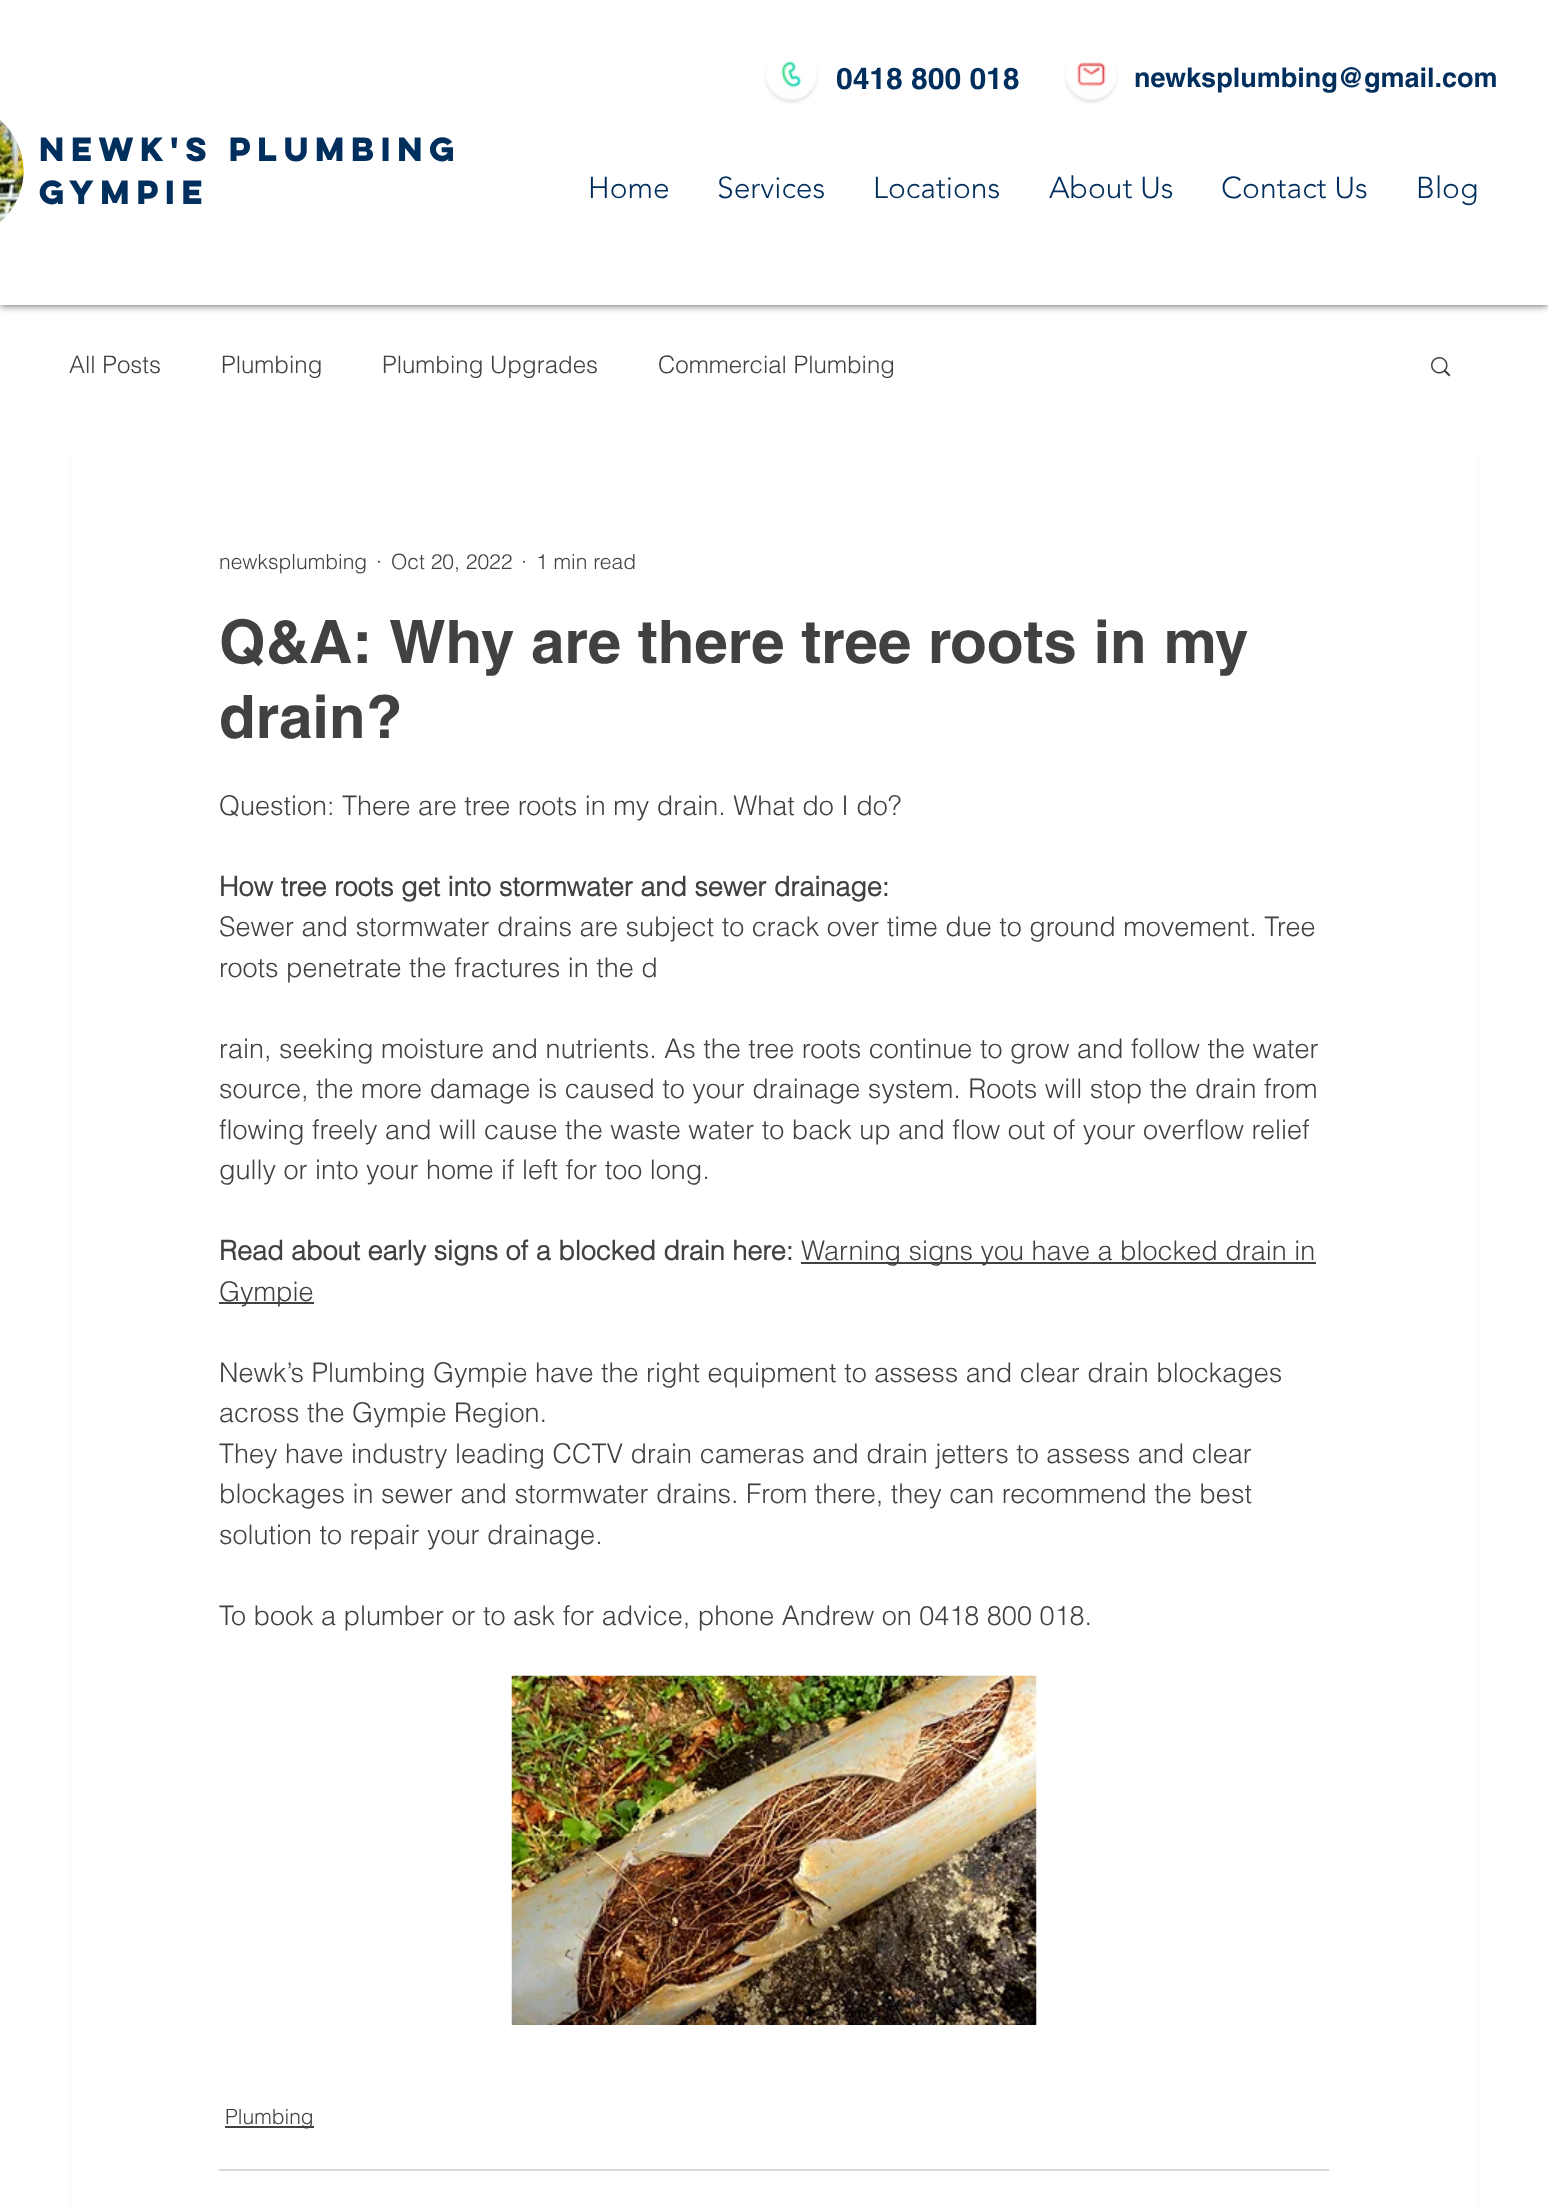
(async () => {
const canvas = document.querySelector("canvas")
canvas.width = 1548
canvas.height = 2206
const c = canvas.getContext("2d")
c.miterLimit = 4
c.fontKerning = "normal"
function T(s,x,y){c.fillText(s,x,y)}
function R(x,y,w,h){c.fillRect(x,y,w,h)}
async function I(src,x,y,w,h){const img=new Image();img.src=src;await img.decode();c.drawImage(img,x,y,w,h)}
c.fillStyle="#fff"
R(0,0,1548,2206)
c.fillStyle="#000000b3"
c.filter="blur(4px)"
c.beginPath()
c.rect(0,0,1548,305)
c.fill()
c.filter="none"
c.fillStyle="#fff"
R(0,0,1548,305)
await I("1.png",763,61,56,43)
c.font="bold 30px helvetica"
c.fillStyle="#002e5d"
T("0418 800 018",836,89)
await I("2.png",1063,62,56,42)
c.font="bold 27px helvetica"
T("newksplumbing@gmail.com",1134,87)
await I("3.png",0,119,24,104)
c.font="bold 30px 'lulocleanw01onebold'"
T("NEWK'S PLUMBING",39,161)
T("GYMPIE",39,204)
c.font="300 30px 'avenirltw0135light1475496'"
T("Home",588,198)
T("Services",717,198)
T("Locations",873,198)
T("About Us",1049,198)
T("Contact Us",1221,198)
T("Blog",1416,198)
c.font="300 24px helvetica"
c.fillStyle="#414141"
T("All Posts",69,373)
T("Plumbing",221,373)
T("Plumbing Upgrades",382,373)
T("Commercial Plumbing",658,373)
await I("4.png",1431,357,20,20)
c.strokeStyle="#fbfbfb"
c.lineWidth=2
c.strokeRect(70,456,1408,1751)
c.font="300 21px helvetica"
T("newksplumbing",219,569)
T("·",376,569)
T("Oct 20, 2022",391,569)
T("·",521,569)
T("1 min read",536,569)
c.font="bold 60px helvetica"
T("Q&A: Why are there tree roots in my",219,663)
T("drain?",219,738)
c.font="300 27px helvetica"
T("Question: There are tree roots in my drain. What do I do?",219,815)
c.font="bold 27px 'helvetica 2'"
T("How tree roots get into stormwater and sewer drainage:",219,896)
c.font="300 27px helvetica"
T("Sewer and stormwater drains are subject to crack over time due to ground movement. Tree",219,936)
T("roots penetrate the fractures in the d",219,977)
T("rain, seeking moisture and nutrients. As the tree roots continue to grow and follow the water",219,1058)
T("source, the more damage is caused to your drainage system. Roots will stop the drain from",219,1098)
T("flowing freely and will cause the waste water to back up and flow out of your overflow relief",219,1139)
T("gully or into your home if left for too long.",219,1179)
c.font="bold 27px 'helvetica 2'"
T("Read about early signs of a blocked drain here:",219,1260)
R(801,1262,515,2)
c.font="300 27px helvetica"
T("Warning signs you have a blocked drain in",801,1260)
R(219,1302,95,2)
T("Gympie",219,1301)
T("Newk’s Plumbing Gympie have the right equipment to assess and clear drain blockages",219,1382)
T("across the Gympie Region.",219,1422)
T("They have industry leading CCTV drain cameras and drain jetters to assess and clear",219,1463)
T("blockages in sewer and stormwater drains. From there, they can recommend the best",219,1503)
T("solution to repair your drainage.",219,1544)
T("To book a plumber or to ask for advice, phone Andrew on 0418 800 018.",219,1625)
await I("5.png",511,1675,526,350)
R(225,2126,89,2)
c.font="300 21px helvetica"
T("Plumbing",225,2124)
c.fillStyle="#d9d9d9"
R(219,2169,1110,2)
})()
